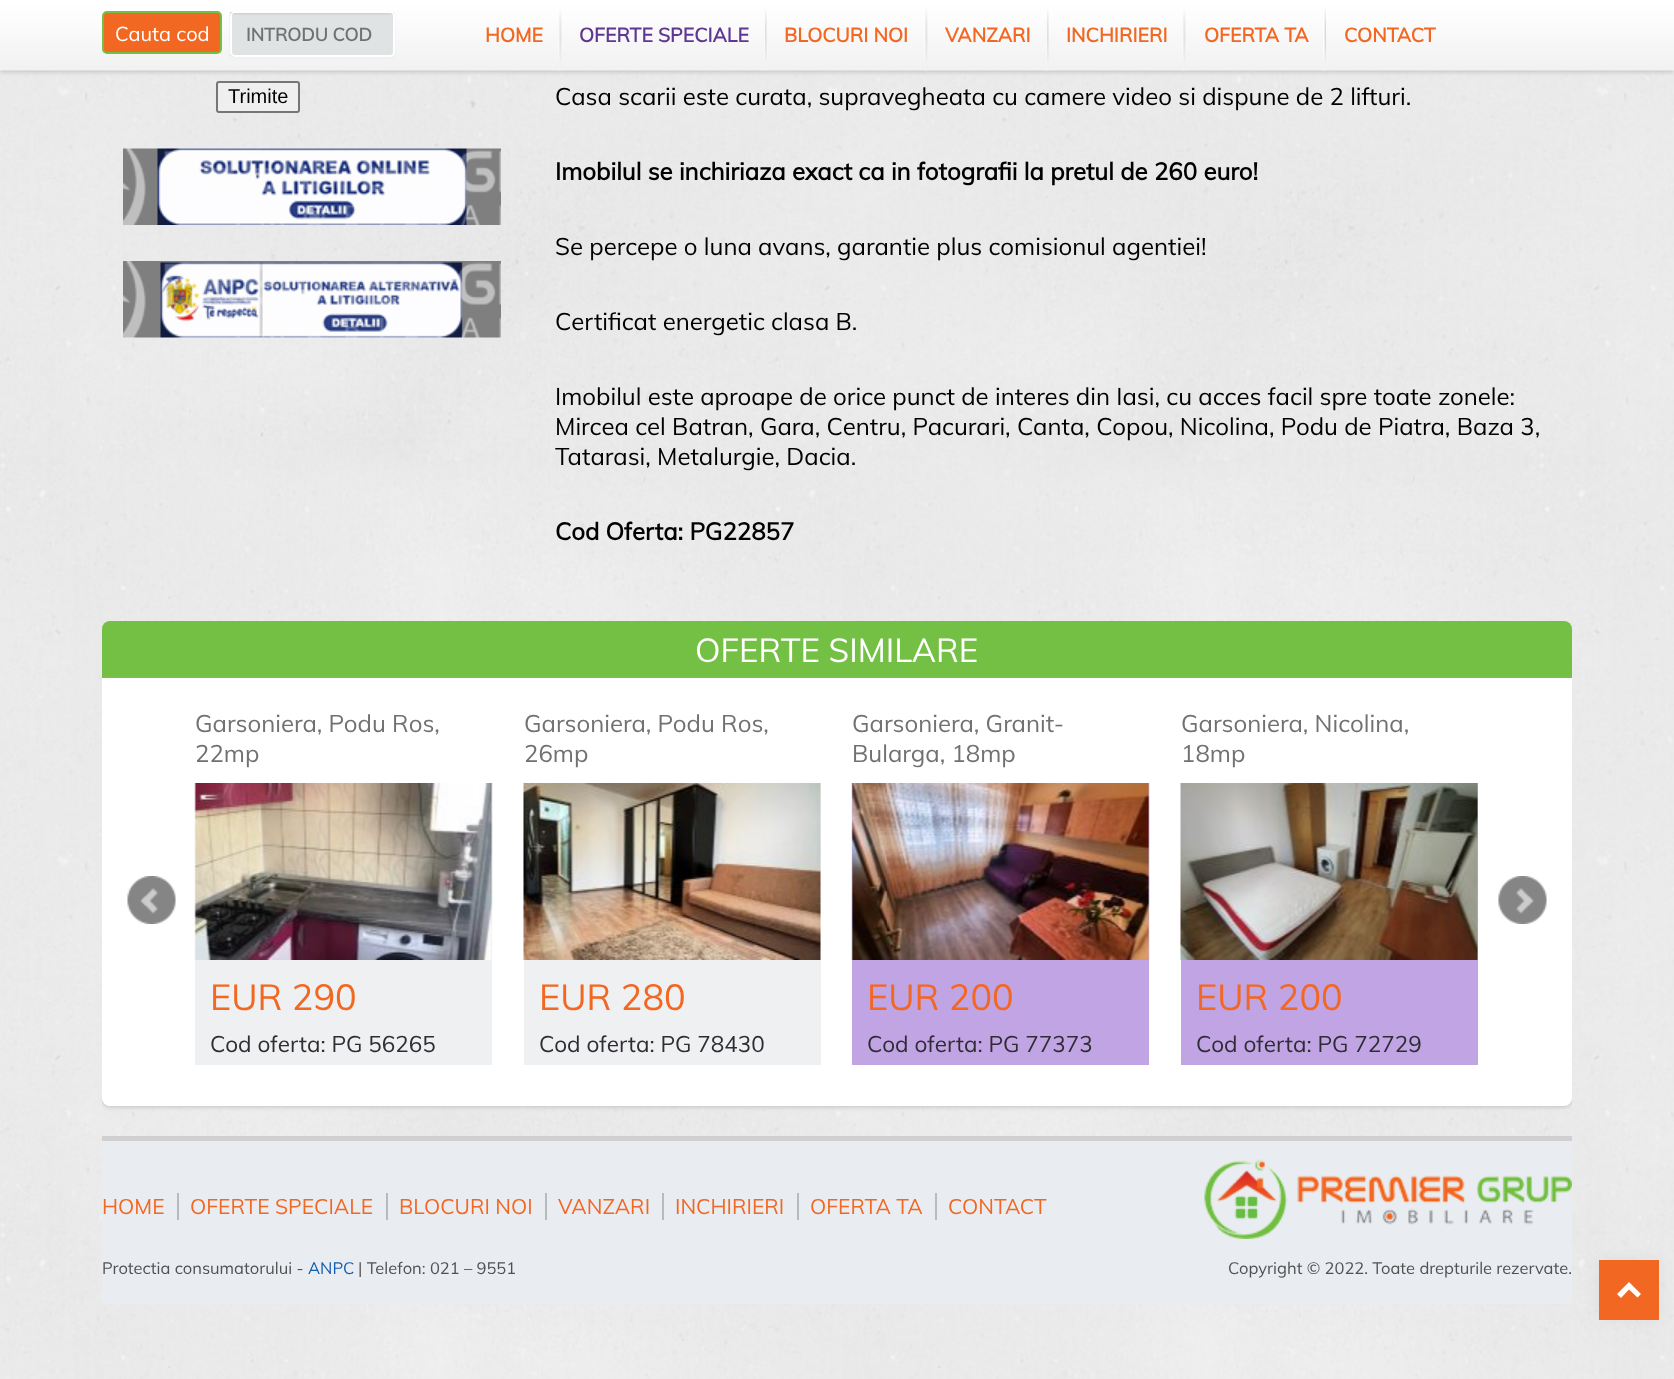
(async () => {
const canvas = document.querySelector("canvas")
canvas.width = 1674
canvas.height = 1379
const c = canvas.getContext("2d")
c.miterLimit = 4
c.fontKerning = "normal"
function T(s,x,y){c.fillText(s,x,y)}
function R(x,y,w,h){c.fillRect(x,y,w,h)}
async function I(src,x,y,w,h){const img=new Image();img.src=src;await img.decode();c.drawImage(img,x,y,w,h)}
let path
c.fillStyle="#fff"
R(0,0,1674,1379)
await I("1.png",0,70,1674,1309)
c.fillStyle="#c3c2c3"
c.filter="blur(2px)"
c.beginPath()
c.rect(0,2,1674,70)
c.fill()
c.filter="none"
await I("2.png",0,0,1674,71)
c.fillStyle="#f26722"
c.beginPath()
c.roundRect(103,12,118,41,4)
c.fill()
c.strokeStyle="#74c044"
c.lineWidth=2
c.stroke()
c.font="20px Muli"
c.fillStyle="#fff"
T("Cauta cod",115,41)
c.fillStyle="#f0f0f0"
c.filter="blur(1px)"
c.beginPath()
c.roundRect(230,12,165,47,5)
c.fill()
c.filter="none"
await I("3.png",229,12,166,45)
c.beginPath()
c.roundRect(231,12,163,44,4)
c.strokeStyle="#fff"
c.stroke()
c.font="bold 18px Muli"
c.fillStyle="#717171"
T("INTRODU COD",246,41)
await I("4.png",558,9,4,62)
c.font="bold 19.5px Muli"
c.fillStyle="#f26722"
T("HOME",485,42)
await I("5.png",764,9,3,62)
c.fillStyle="#5f3691"
T("OFERTE SPECIALE",579,42)
await I("6.png",924,9,4,62)
c.fillStyle="#f26722"
T("BLOCURI NOI",784,42)
await I("7.png",1046,9,3,62)
T("VANZARI",945,42)
await I("6.png",1182,9,4,62)
T("INCHIRIERI",1066,42)
await I("8.png",1323,8,3,63)
T("OFERTA TA",1204,42)
T("CONTACT",1344,42)
c.fillStyle="#efefef"
c.beginPath()
c.roundRect(217,82,82,30,2)
c.fill()
c.strokeStyle="#767676"
c.stroke()
c.font="20px Liberation Sans"
c.fillStyle="#000"
T("Trimite",228,103)
await I("9.png",123,148,378,77)
await I("10.png",123,261,378,77)
c.font="24px Muli"
T("Casa scarii este curata, supravegheata cu camere video si dispune de 2 lifturi.",555,105)
c.font="bold 24px Muli"
T("Imobilul se inchiriaza exact ca in fotografii la pretul de 260 euro!",555,180)
c.font="24px Muli"
T("Se percepe o luna avans, garantie plus comisionul agentiei!",555,255)
T("Certificat energetic clasa B.",555,330)
T("Imobilul este aproape de orice punct de interes din Iasi, cu acces facil spre toate zonele:",555,405)
T("Mircea cel Batran, Gara, Centru, Pacurari, Canta, Copou, Nicolina, Podu de Piatra, Baza 3,",555,435)
T("Tatarasi, Metalurgie, Dacia.",555,465)
c.font="bold 24px Muli"
T("Cod Oferta: PG22857",555,540)
c.fillStyle="#74c044"
c.beginPath()
c.roundRect(102,621,1470,57,[8,8,0,0])
c.fill()
c.font="33px Muli"
c.fillStyle="#fff"
T("OFERTE SIMILARE",695,662)
c.save()
c.beginPath()
c.rect(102,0,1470,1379)
c.clip()
c.fillStyle="#c3c2c3"
c.filter="blur(2px)"
c.beginPath()
c.roundRect(102,680,1470,427,8)
c.fill()
c.filter="none"
c.restore()
c.beginPath()
c.roundRect(102,678,1470,428,[0,0,8,8])
c.fill()
c.font="24px Muli"
c.fillStyle="#717171"
T("Garsoniera, Podu Ros,",195,732)
T("22mp",195,762)
c.fillStyle="#eff0f1"
R(195,783,297,282)
await I("11.png",194,783,299,177)
c.font="36px Muli"
c.fillStyle="#f26722"
T("EUR 290",210,1010)
c.font="22.5px Muli"
c.fillStyle="#2f2c33"
T("Cod oferta: PG 56265",210,1052)
c.font="24px Muli"
c.fillStyle="#717171"
T("Garsoniera, Podu Ros,",524,732)
T("26mp",524,762)
c.fillStyle="#eff0f1"
R(524,783,297,282)
await I("12.png",523,783,298,177)
c.font="36px Muli"
c.fillStyle="#f26722"
T("EUR 280",539,1010)
c.font="22.5px Muli"
c.fillStyle="#2f2c33"
T("Cod oferta: PG 78430",539,1052)
c.font="24px Muli"
c.fillStyle="#717171"
T("Garsoniera, Granit-",852,732)
T("Bularga, 18mp",852,762)
c.fillStyle="#c1a4e4"
R(852,783,297,282)
await I("13.png",851,783,299,177)
c.font="36px Muli"
c.fillStyle="#f26722"
T("EUR 200",867,1010)
c.font="22.5px Muli"
c.fillStyle="#2f2c33"
T("Cod oferta: PG 77373",867,1052)
c.font="24px Muli"
c.fillStyle="#717171"
T("Garsoniera, Nicolina,",1181,732)
T("18mp",1181,762)
c.fillStyle="#c1a4e4"
R(1181,783,297,282)
await I("14.png",1180,783,298,177)
c.font="36px Muli"
c.fillStyle="#f26722"
T("EUR 200",1196,1010)
c.font="22.5px Muli"
c.fillStyle="#2f2c33"
T("Cod oferta: PG 72729",1196,1052)
await I("15.png",127,876,49,48)
await I("16.png",1498,876,49,48)
c.fillStyle="#e9edf1"
R(102,1141,1470,163)
c.fillStyle="#d0d0d0"
R(102,1136,1470,5)
c.fillStyle="#b8bbbd"
R(177,1193,2,27)
c.font="21px Muli"
c.fillStyle="#f26722"
T("HOME",102,1214)
c.fillStyle="#b8bbbd"
R(386,1193,2,27)
c.fillStyle="#f26722"
T("OFERTE SPECIALE",190,1214)
c.fillStyle="#b8bbbd"
R(545,1193,2,27)
c.fillStyle="#f26722"
T("BLOCURI NOI",399,1214)
c.fillStyle="#b8bbbd"
R(662,1193,2,27)
c.fillStyle="#f26722"
T("VANZARI",558,1214)
c.fillStyle="#b8bbbd"
R(797,1193,2,27)
c.fillStyle="#f26722"
T("INCHIRIERI",675,1214)
c.fillStyle="#b8bbbd"
R(935,1193,2,27)
c.fillStyle="#f26722"
T("OFERTA TA",810,1214)
T("CONTACT",948,1214)
await I("17.png",1204,1159,368,80)
c.font="16.5px Muli"
c.fillStyle="#515151"
T("Protectia consumatorului -",102,1274)
c.fillStyle="#125dae"
T("ANPC",308,1274)
c.fillStyle="#515151"
T("| Telefon: 021 – 9551",358,1274)
T("Copyright © 2022. Toate drepturile rezervate.",1228,1274)
c.fillStyle="#0000000d"
c.filter="blur(7.5px)"
c.beginPath()
c.rect(1599,1260,60,60)
c.fill()
c.filter="none"
c.fillStyle="#f26722"
R(1599,1260,60,60)
c.fillStyle="#fff"
path = new Path2D("M1629 1282l12 12l-3.5 3.5l-8.5-8l-8 8.5l-4-4z")
c.fill(path)
})()
